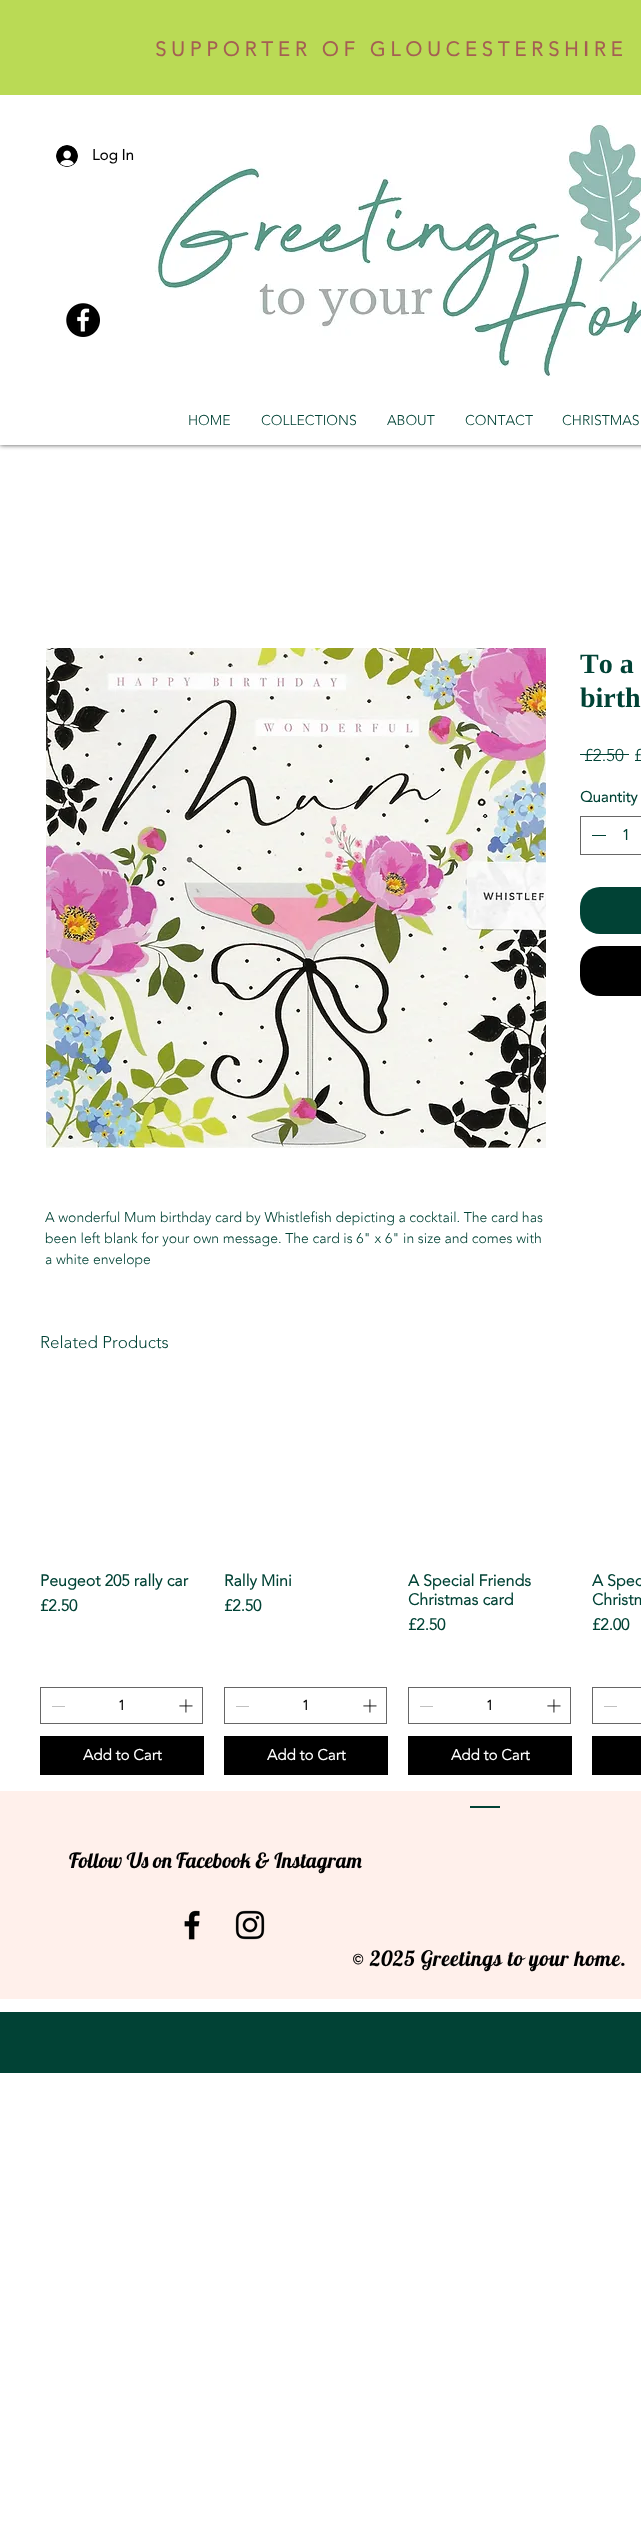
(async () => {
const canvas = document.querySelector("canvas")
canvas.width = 641
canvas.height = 2544
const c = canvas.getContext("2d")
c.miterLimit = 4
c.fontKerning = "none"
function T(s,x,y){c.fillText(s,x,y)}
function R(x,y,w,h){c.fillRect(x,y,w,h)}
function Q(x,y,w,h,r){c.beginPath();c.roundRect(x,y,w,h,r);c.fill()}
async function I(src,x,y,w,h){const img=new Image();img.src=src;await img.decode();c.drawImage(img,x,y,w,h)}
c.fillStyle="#fff"
R(0,0,641,2544)
c.fillStyle="#000000b3"
c.filter="blur(2.5px)"
c.beginPath()
c.rect(0,0,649,445)
c.fill()
c.filter="none"
c.fillStyle="#fff"
R(0,95,641,350)
c.fillStyle="#bada55"
R(0,0,641,95)
c.letterSpacing="5px"
c.font="bold 20px 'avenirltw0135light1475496'"
c.fillStyle="#a45f53"
T("SUPPORTER OF GLOUCESTERSHIRE",155,56)
T("I",583,56)
await I("1.png",56,145,22,22)
c.letterSpacing="0px"
c.font="bold 15px 'avenirltw0135light1475496'"
c.fillStyle="#000"
T("Log In",92,160)
await I("2.png",155,120,486,257)
await I("3.png",66,303,34,34)
c.font="300 14px 'avenirltw0135light1475496'"
c.fillStyle="#014235"
T("HOME",188,425)
T("COLLECTIONS",261,425)
T("ABOUT",387,425)
T("CONTACT",465,425)
T("CHRISTMAS",562,425)
c.font="bold 28px Liberation Serif"
T("To a",580,673)
T("birth",580,707)
c.font="300 17px 'avenirltw0135light1475496'"
T("£2.50",584,761)
R(580,754,49,1)
T("£",634,761)
c.font="bold 15px 'avenirltw0135light1475496'"
T("Quantity",580,802)
c.strokeStyle="#666"
c.strokeRect(580.5,816.5,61,38)
R(592,835,14,1)
T("1",622,840)
Q(580,887,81,47,20)
c.fillStyle="#000"
Q(580,946,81,50,20)
await I("4.png",46,648,500,500)
c.font="300 14px 'avenirltw0135light1475496'"
c.fillStyle="#014235"
T("A wonderful Mum birthday card by Whistlefish depicting a cocktail. The card has",45,1222)
T("been left blank for your own message. The card is 6\" x 6\" in size and comes with",45,1243)
T("a white envelope",45,1264)
c.font="300 17px 'avenirltw0135light1475496'"
T("Related Products",40,1348)
c.font="bold 16px 'avenirltw0135light1475496'"
T("Peugeot 205 rally car",40,1586)
T("£2.50",40,1611)
c.strokeRect(40.5,1687.5,162,36)
c.fillStyle="#c0c0c0"
R(52,1706,13,1)
c.font="bold 14px 'avenirltw0135light1475496'"
c.fillStyle="#000"
T("1",118,1710)
await I("5.png",179,1699,14,14)
R(40,1736,164,39)
c.font="bold 15px 'avenirltw0135light1475496'"
c.fillStyle="#fff"
T("Add to Cart",83,1760)
c.font="bold 16px 'avenirltw0135light1475496'"
c.fillStyle="#014235"
T("Rally Mini",224,1586)
T("£2.50",224,1611)
c.strokeRect(224.5,1687.5,162,36)
c.fillStyle="#c0c0c0"
R(236,1706,13,1)
c.font="bold 14px 'avenirltw0135light1475496'"
c.fillStyle="#000"
T("1",302,1710)
await I("5.png",363,1699,14,14)
R(224,1736,164,39)
c.font="bold 15px 'avenirltw0135light1475496'"
c.fillStyle="#fff"
T("Add to Cart",267,1760)
c.font="bold 16px 'avenirltw0135light1475496'"
c.fillStyle="#014235"
T("A Special Friends",408,1586)
T("Christmas card",408,1605)
T("£2.50",408,1630)
c.strokeRect(408.5,1687.5,162,36)
c.fillStyle="#c0c0c0"
R(420,1706,13,1)
c.font="bold 14px 'avenirltw0135light1475496'"
c.fillStyle="#000"
T("1",486,1710)
await I("5.png",547,1699,14,14)
R(408,1736,164,39)
c.font="bold 15px 'avenirltw0135light1475496'"
c.fillStyle="#fff"
T("Add to Cart",451,1760)
c.font="bold 16px 'avenirltw0135light1475496'"
c.fillStyle="#014235"
T("A Spec",592,1586)
T("Christm",592,1605)
T("£2.00",592,1630)
c.strokeRect(592.5,1687.5,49,36)
c.fillStyle="#c0c0c0"
R(604,1706,13,1)
c.fillStyle="#000"
R(592,1736,49,39)
c.fillStyle="#fff0eb"
R(0,1791,641,208)
c.fillStyle="#014235"
R(470,1806,30,2)
c.font="21px Lobster"
c.fillStyle="#000"
T("Follow Us on Facebook & Instagram",69,1868)
await I("6.png",184,1910,16,30)
await I("7.png",235,1910,30,30)
c.letterSpacing="0.6px"
T("© 2025 Greetings to your home.",352,1966)
c.fillStyle="#014235"
R(0,2012,641,61)
})()
